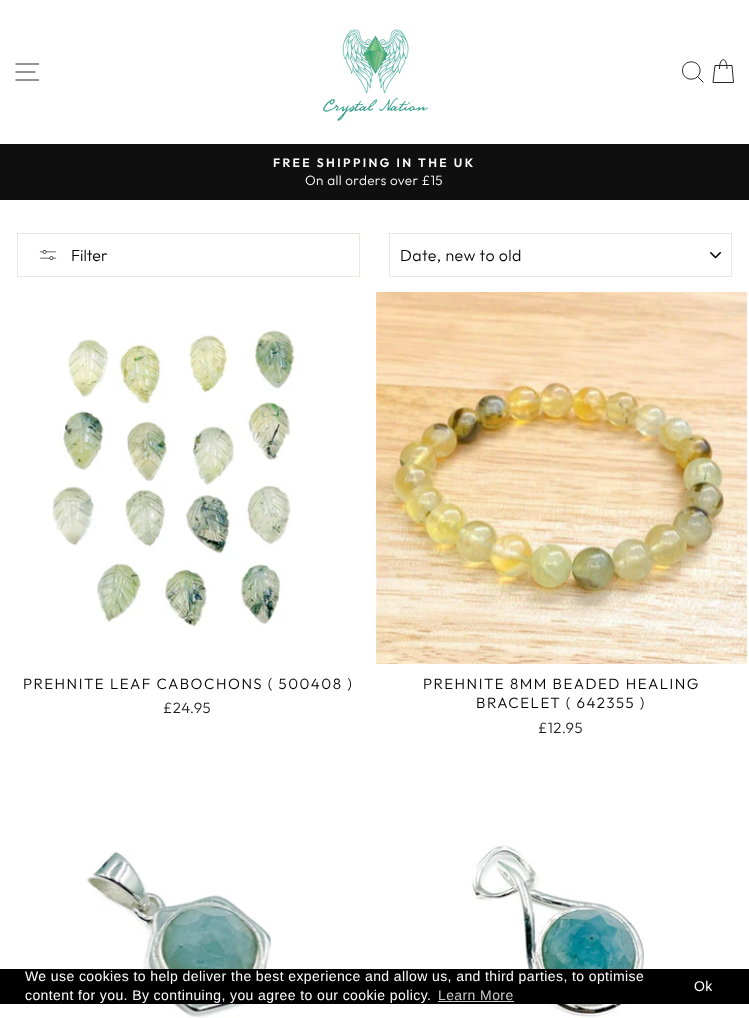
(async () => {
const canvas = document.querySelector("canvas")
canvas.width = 749
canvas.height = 1018
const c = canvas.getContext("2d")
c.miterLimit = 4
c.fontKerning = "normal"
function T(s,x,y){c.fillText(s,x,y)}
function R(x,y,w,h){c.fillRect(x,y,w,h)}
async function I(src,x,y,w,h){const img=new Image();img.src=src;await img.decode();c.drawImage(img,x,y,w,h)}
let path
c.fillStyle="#fff"
R(0,0,749,1018)
path = new Path2D("M15.5 64h23.5m-23.5 8h20m-20 8h23.5")
c.strokeStyle="#0f0f0f"
c.lineWidth=0.9
c.stroke(path)
await I("1.png",323,29,105,92)
path = new Path2D("M700 70.5c0 11.5-17.5 11.5-17.5 0c0-11.5 17.5-11.5 17.5 0zm3.5 12l-6-6m22-7.5c0-12.5 7.5-12.5 7.5 0m-12-3.5h17l1.5 17h-20.5z")
c.stroke(path)
c.fillStyle="#0f0f0f"
R(0,144,749,56)
c.letterSpacing="2.4px"
c.font="600 12.2px Outfit"
c.fillStyle="#fff"
T("FREE SHIPPING IN THE UK",273,167)
c.letterSpacing="0.4px"
c.font="300 13.5px Outfit"
T("On all orders over £15",305,185)
c.strokeStyle="#e8e8e1"
c.lineWidth=1
c.strokeRect(17.5,233.5,342,43)
await I("2.png",39,250,18,10)
c.letterSpacing="0px"
c.font="300 16px Outfit"
c.fillStyle="#000"
T("Filter",71,261)
await I("3.png",710,252,11,7)
c.strokeRect(389.5,233.5,342,43)
c.letterSpacing="0.4px"
T("Date, new to old",400,261)
await I("4.png",52,329,243,298)
c.letterSpacing="1.5px"
c.font="300 15px Outfit"
T("PREHNITE LEAF CABOCHONS ( 500408 )",23,689)
c.letterSpacing="0.4px"
c.fillStyle="#1c1d1d"
T("£24.95",163,713)
await I("5.png",376,292,371,372)
c.letterSpacing="1.5px"
c.fillStyle="#000"
T("PREHNITE 8MM BEADED HEALING",423,689)
T("BRACELET ( 642355 )",476,708)
c.letterSpacing="0.4px"
c.fillStyle="#1c1d1d"
T("£12.95",538,733)
await I("6.png",86,851,185,167)
await I("7.png",471,845,173,173)
c.fillStyle="#000"
R(0,969,749,35)
c.font="14px Liberation Sans"
c.fillStyle="#fff"
T("We use cookies to help deliver the best experience and allow us, and third parties, to optimise",25,981)
T("content for you. By continuing, you agree to our cookie policy.",25,1000)
c.fillStyle="#ccc"
T("Learn More",438,1000)
R(438,1001,76,1)
c.fillStyle="#fff"
T("Ok",694,991)
})()
